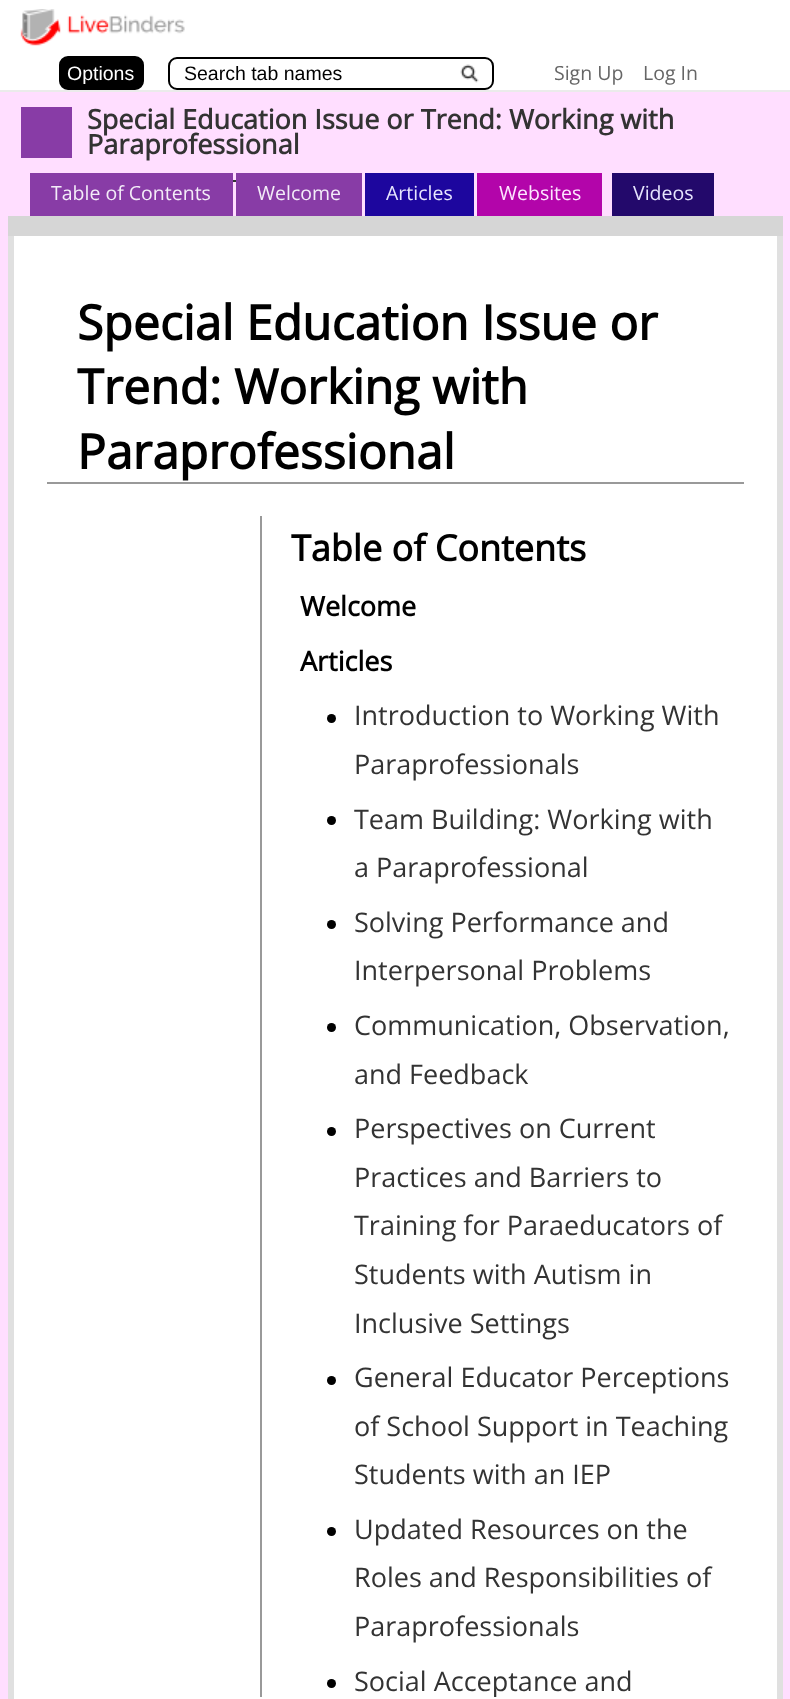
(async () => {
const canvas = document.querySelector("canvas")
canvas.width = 790
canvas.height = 1699
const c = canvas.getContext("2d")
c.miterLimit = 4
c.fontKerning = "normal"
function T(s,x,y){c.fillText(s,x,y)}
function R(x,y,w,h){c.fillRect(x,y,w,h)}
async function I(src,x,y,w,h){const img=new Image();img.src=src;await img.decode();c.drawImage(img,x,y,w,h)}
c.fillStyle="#ffdeff"
R(0,0,790,1699)
c.fillStyle="#fff"
R(0,0,790,90)
c.fillStyle="#ebebeb"
R(0,90,790,2)
await I("1.png",20,9,165,37)
c.fillStyle="#000"
c.beginPath()
c.roundRect(60,57,83,32,8)
c.fill()
c.strokeStyle="#000"
c.lineWidth=2
c.stroke()
c.font="19.5px Liberation Sans"
c.fillStyle="#fff"
T("Options",67,80)
await I("2.png",460,64,19,19)
c.beginPath()
c.roundRect(169,58,324,31,8)
c.stroke()
c.fillStyle="#000"
T("Search tab names",184,80)
c.font="19.5px Open Sans"
c.fillStyle="#666"
T("Sign Up",554,80)
T("Log In",643,80)
c.fillStyle="#883ca6"
R(21,107,51,51)
c.font="bold 27px Open Sans"
c.fillStyle="#333"
T("Special Education Issue or Trend: Working with",87,129)
T("Paraprofessional",87,154)
R(233,180,3,2)
c.fillStyle="#d6d6d6"
R(8,216,775,20)
c.fillStyle="#883ca6"
R(30,173,203,43)
c.font="19.5px Open Sans"
c.fillStyle="#f3ecf8"
T("Table of Contents",51,200)
c.fillStyle="#883ca6"
R(236,173,126,43)
c.fillStyle="#f3ecf8"
T("Welcome",257,200)
c.fillStyle="#1d069e"
R(365,173,109,43)
c.fillStyle="#e7e6fe"
T("Articles",386,200)
c.fillStyle="#b305aa"
R(477,173,125,43)
c.fillStyle="#fde6ff"
T("Websites",499,200)
c.fillStyle="#23096b"
R(612,173,102,43)
c.fillStyle="#e7e6fe"
T("Videos",633,200)
c.fillStyle="#fff"
R(14,236,763,1463)
c.fillStyle="#e0e0e0"
R(777,236,6,1463)
R(8,236,6,1463)
c.fillStyle="#999"
R(47,482,697,2)
c.font="bold 48px Open Sans"
c.fillStyle="#000"
T("Special Education Issue or",77,340)
T("Trend: Working with",77,404)
T("Paraprofessional",77,469)
c.fillStyle="#999"
R(260,516,2,1181)
c.font="bold 36px Open Sans"
c.fillStyle="#000"
T("Table of Contents",291,561)
c.font="bold 27px Open Sans"
T("Welcome",300,616)
T("Articles",300,671)
c.beginPath()
c.arc(331.5,718.5,4.5,0,7)
c.fill()
c.font="27px Open Sans"
c.fillStyle="#333"
T("Introduction to Working With",354,725)
T("Paraprofessionals",354,774)
c.fillStyle="#000"
c.beginPath()
c.arc(331.5,820.5,4.5,0,7)
c.fill()
c.fillStyle="#333"
T("Team Building: Working with",354,829)
T("a Paraprofessional",354,877)
c.fillStyle="#000"
c.beginPath()
c.arc(331.5,924.5,4.5,0,7)
c.fill()
c.fillStyle="#333"
T("Solving Performance and",354,932)
T("Interpersonal Problems",354,980)
c.fillStyle="#000"
c.beginPath()
c.arc(331.5,1027.5,4.5,0,7)
c.fill()
c.fillStyle="#333"
T("Communication, Observation,",354,1035)
T("and Feedback",354,1084)
c.fillStyle="#000"
c.beginPath()
c.arc(331.5,1131.5,4.5,0,7)
c.fill()
c.fillStyle="#333"
T("Perspectives on Current",354,1138)
T("Practices and Barriers to",354,1187)
T("Training for Paraeducators of",354,1235)
T("Students with Autism in",354,1284)
T("Inclusive Settings",354,1333)
c.fillStyle="#000"
c.beginPath()
c.arc(331.5,1380.5,4.5,0,7)
c.fill()
c.fillStyle="#333"
T("General Educator Perceptions",354,1387)
T("of School Support in Teaching",354,1436)
T("Students with an IEP",354,1484)
c.fillStyle="#000"
c.beginPath()
c.arc(331.5,1531.5,4.5,0,7)
c.fill()
c.fillStyle="#333"
T("Updated Resources on the",354,1539)
T("Roles and Responsibilities of",354,1587)
T("Paraprofessionals",354,1636)
c.fillStyle="#000"
c.beginPath()
c.arc(331.5,1683.5,4.5,0,7)
c.fill()
c.save()
c.beginPath()
c.rect(291,576,453,1121)
c.clip()
c.fillStyle="#333"
T("Social Acceptance and",354,1691)
c.restore()
})()
